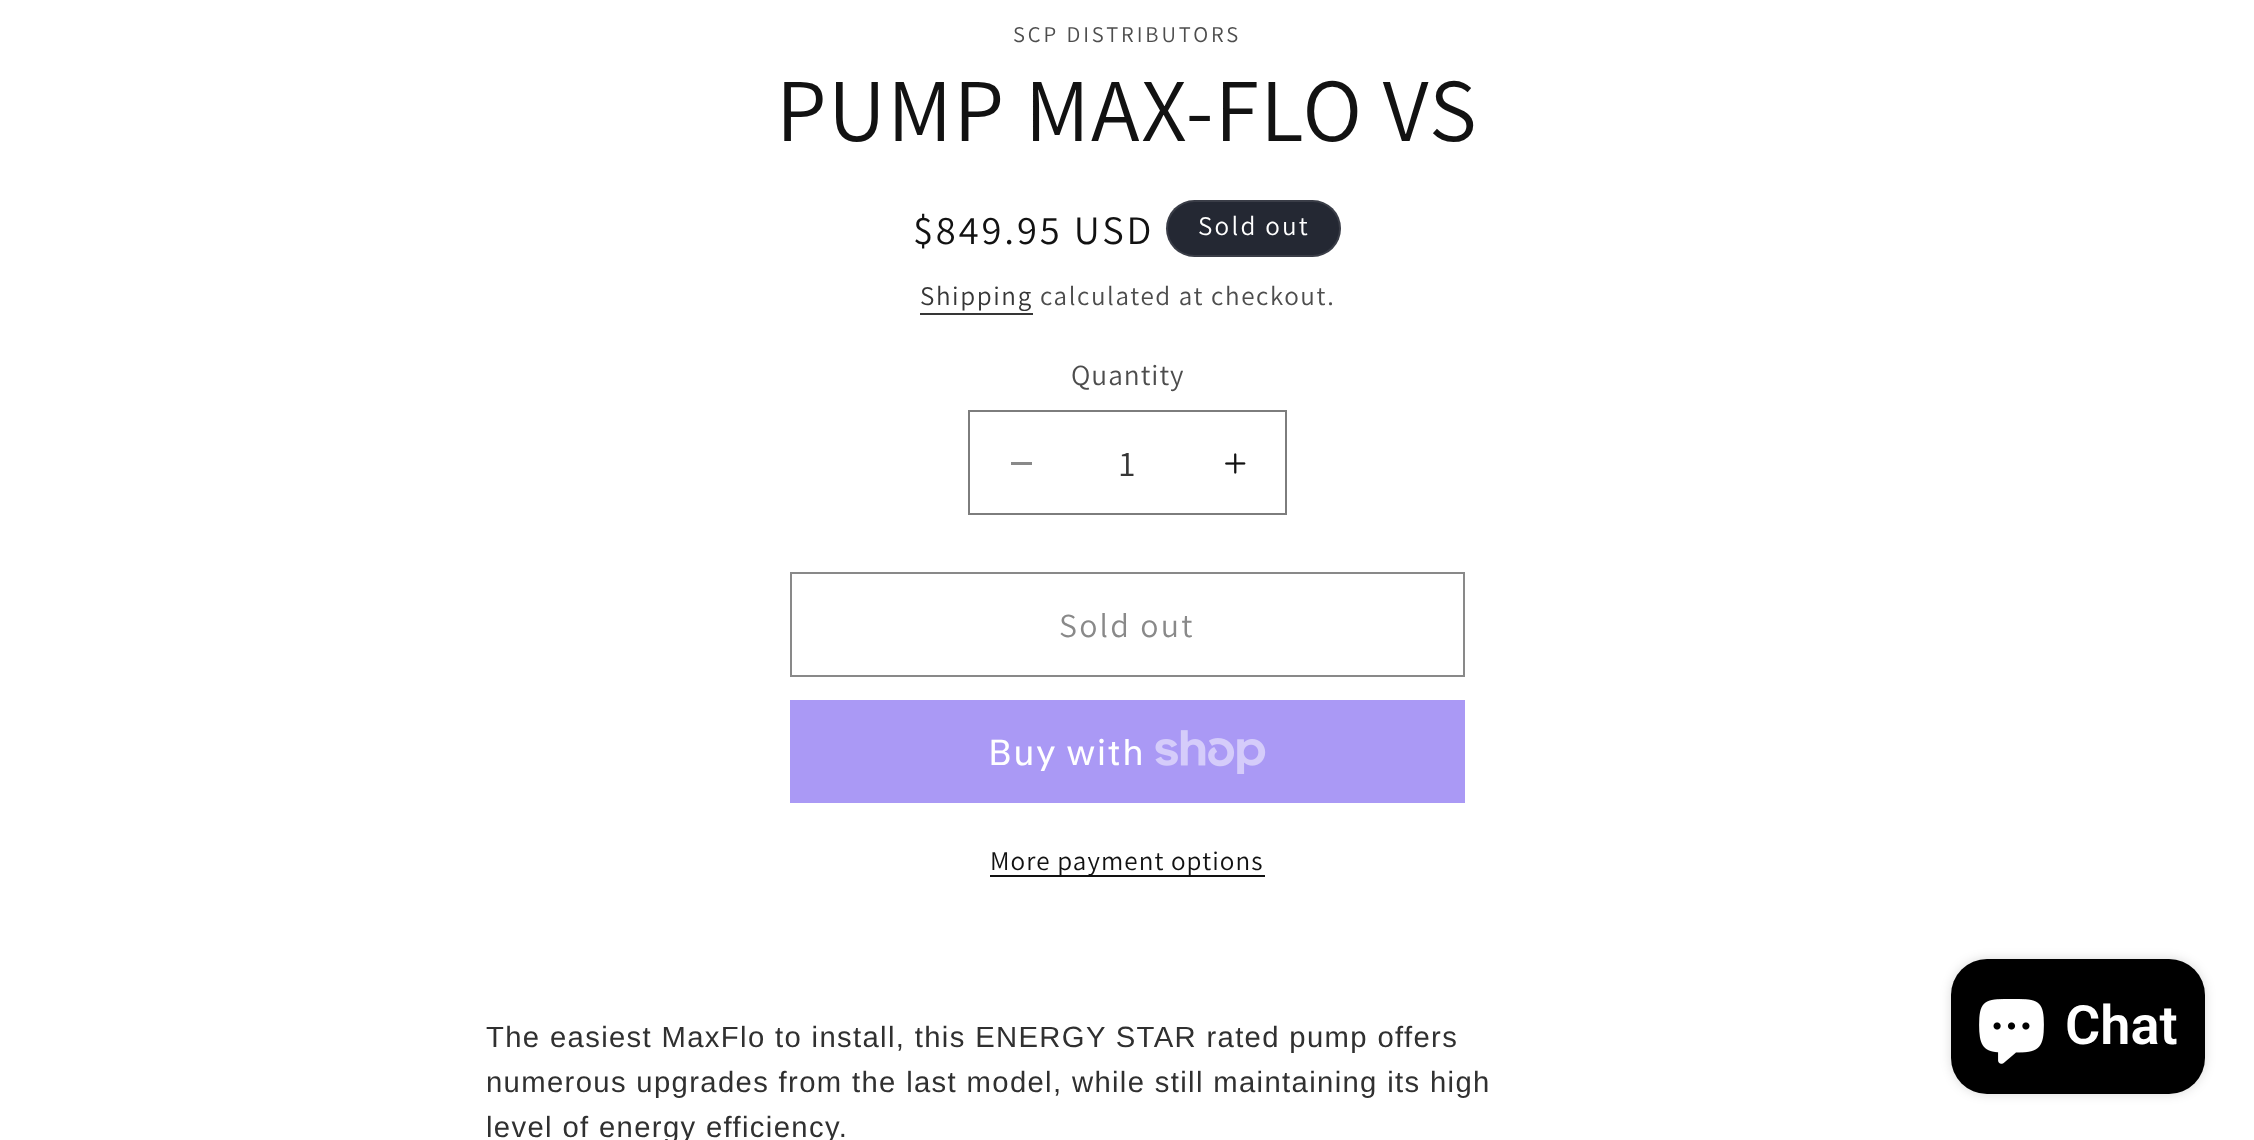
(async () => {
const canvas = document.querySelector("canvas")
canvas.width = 2254
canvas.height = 1140
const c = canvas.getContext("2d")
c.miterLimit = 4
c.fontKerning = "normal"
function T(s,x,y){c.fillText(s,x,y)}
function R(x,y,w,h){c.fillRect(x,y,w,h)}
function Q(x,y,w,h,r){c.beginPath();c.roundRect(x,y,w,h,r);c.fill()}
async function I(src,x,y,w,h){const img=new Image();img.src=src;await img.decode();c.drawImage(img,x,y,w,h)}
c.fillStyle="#fff"
R(0,0,2254,1140)
c.letterSpacing="2.9px"
c.font="22.5px Assistant"
c.fillStyle="#4d4d4d"
T("SCP DISTRIBUTORS",1013,42)
c.letterSpacing="1.35px"
c.font="90px Assistant"
c.fillStyle="#121212"
T("PUMP MAX-FLO VS",776,141)
c.letterSpacing="2.9px"
c.font="40.5px Assistant"
T("$849.95 USD",913,244)
c.fillStyle="#242833"
Q(1166,200,175,57,28.5)
c.beginPath()
c.roundRect(1167,201,173,55,27.5)
c.strokeStyle="#ffffff1a"
c.lineWidth=2
c.stroke()
c.letterSpacing="2.25px"
c.font="27px Assistant"
c.fillStyle="#fff"
T("Sold out",1198,235)
c.letterSpacing="1.6px"
c.fillStyle="#363636"
T("Shipping",920,305)
R(920,313,113,2)
c.fillStyle="#4d4d4d"
T("calculated at checkout.",1040,305)
c.letterSpacing="1px"
c.font="29.25px Assistant"
T("Quantity",1071,385)
c.fillStyle="#898989"
R(1011,462,21,3)
await I("1.png",1225,453,21,21)
c.strokeStyle="#7d7d7d"
c.strokeRect(969,411,317,103)
c.letterSpacing="0px"
c.font="36px Assistant"
c.fillStyle="#363636"
T("1",1119,476)
c.strokeStyle="#898989"
c.strokeRect(791,573,673,103)
c.letterSpacing="2.25px"
c.font="33.75px Assistant"
c.fillStyle="#898989"
T("Sold out",1059,637)
c.fillStyle="#aa99f5"
R(790,700,675,103)
c.letterSpacing="1.35px"
c.font="36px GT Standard"
c.fillStyle="#fff"
T("Buy with",988,765)
await I("2.png",1155,730,111,44)
c.fillStyle="#121212"
R(990,875,275,2)
c.letterSpacing="1.1px"
c.font="27px Assistant"
T("More payment options",990,870)
c.letterSpacing="1.35px"
c.font="29.25px Liberation Sans"
c.fillStyle="#303030"
T("The easiest MaxFlo to install, this ENERGY STAR rated pump offers",486,1047)
T("numerous upgrades from the last model, while still maintaining its high",486,1092)
T("level of energy efficiency.",486,1137)
c.fillStyle="#00000026"
c.filter="blur(5.5px)"
c.beginPath()
c.roundRect(1951,959,254,135,36)
c.fill()
c.filter="none"
c.fillStyle="#000"
Q(1951,959,254,135,36)
await I("3.png",1979,999,65,65)
c.letterSpacing="0px"
c.font="600 54px Roboto"
c.fillStyle="#fff"
T("Chat",2065,1044)
})()
